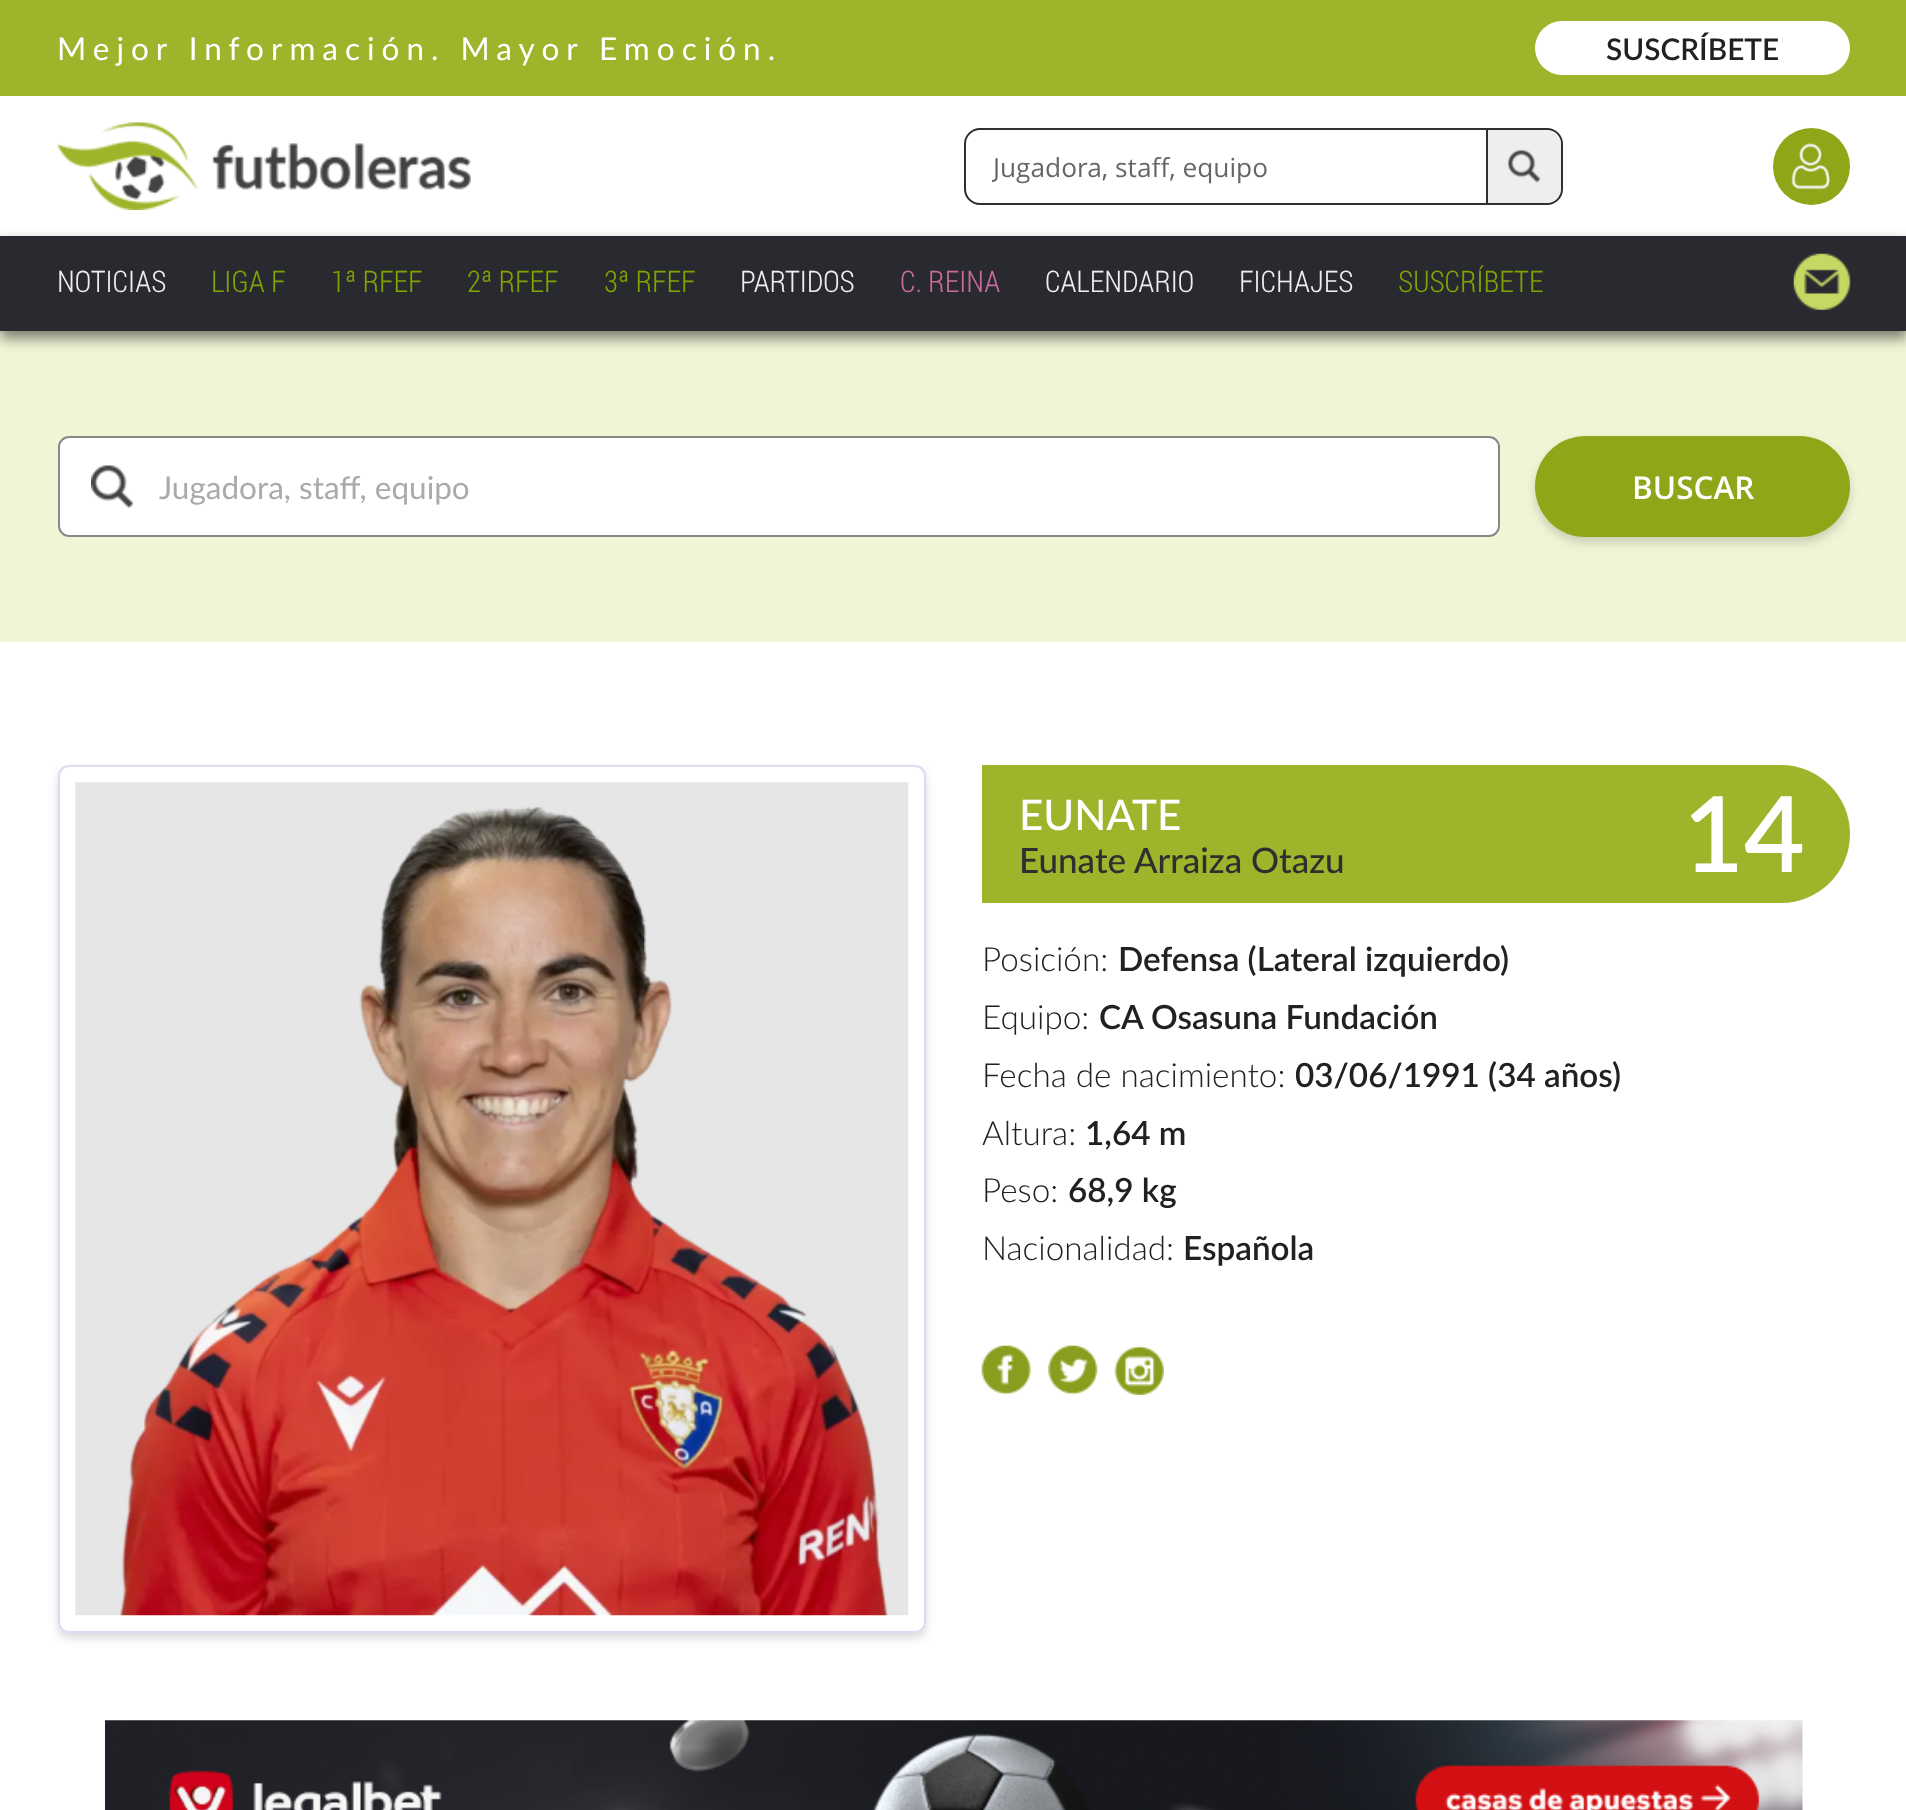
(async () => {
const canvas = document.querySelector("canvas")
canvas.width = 1906
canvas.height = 1810
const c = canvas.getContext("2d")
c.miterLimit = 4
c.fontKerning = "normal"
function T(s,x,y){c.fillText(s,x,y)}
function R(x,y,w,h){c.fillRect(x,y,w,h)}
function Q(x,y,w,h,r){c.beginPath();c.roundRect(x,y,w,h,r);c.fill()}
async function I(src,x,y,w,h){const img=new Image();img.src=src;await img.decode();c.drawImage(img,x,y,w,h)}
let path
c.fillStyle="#f0f5d6"
R(0,0,1906,1810)
c.fillStyle="#9cb52b"
R(0,0,1906,96)
c.letterSpacing="7px"
c.font="31.5px Lato"
c.fillStyle="#fff"
T("Mejor Información. Mayor Emoción.",57,60)
Q(1535,21,315,54,27)
c.letterSpacing="0px"
c.font="600 29.75px Lato"
c.fillStyle="#212121"
T("SUSCRÍBETE",1606,60)
c.fillStyle="#fff"
R(0,96,1906,140)
await I("1.png",57,122,414,88)
c.beginPath()
c.roundRect(965,129,597,75,15)
c.strokeStyle="#2f2f2f"
c.lineWidth=2
c.stroke()
c.save()
c.beginPath()
c.rect(992,149,469,35)
c.clip()
c.font="26.25px Open Sans"
c.fillStyle="#666"
T("Jugadora, staff, equipo",993,177)
c.restore()
c.fillStyle="#eee"
c.beginPath()
c.roundRect(1488,130,73,73,[0,16,16,0])
c.fill()
await I("2.png",1507,149,34,34)
c.fillStyle="#2f2f2f"
R(1486,130,2,73)
c.fillStyle="#8da718"
c.beginPath()
c.arc(1811.5,166.5,38.5,0,7)
c.fill()
await I("3.png",1791,142,39,48)
c.fillStyle="#00000080"
c.filter="blur(7px)"
c.beginPath()
c.rect(0,243,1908,95)
c.fill()
c.filter="none"
c.fillStyle="#292930"
R(0,236,1906,95)
c.font="300 29.75px Roboto Condensed"
c.fillStyle="#eee"
T("NOTICIAS",57,292)
c.fillStyle="#84a200"
T("LIGA F",211,292)
T("1ª RFEF",331,292)
T("2ª RFEF",467,292)
T("3ª RFEF",604,292)
c.fillStyle="#eee"
T("PARTIDOS",740,292)
c.fillStyle="#c86c9e"
T("C. REINA",900,292)
c.fillStyle="#eee"
T("CALENDARIO",1045,292)
T("FICHAJES",1239,292)
c.fillStyle="#84a200"
T("SUSCRÍBETE",1398,292)
await I("4.png",1793,253,58,57)
c.fillStyle="#fff"
Q(58,436,1442,101,11)
await I("5.png",91,465,42,43)
c.beginPath()
c.roundRect(59,437,1440,99,10)
c.strokeStyle="#888"
c.stroke()
c.font="31.5px Lato"
c.fillStyle="#aaa"
T("Jugadora, staff, equipo",159,499)
c.fillStyle="#00000026"
c.filter="blur(5px)"
c.beginPath()
c.roundRect(1535,441,315,102,51)
c.fill()
c.filter="none"
c.fillStyle="#8da718"
Q(1535,436,315,101,50.5)
c.font="600 31.5px Open Sans"
c.fillStyle="#fff"
T("BUSCAR",1632,499)
R(0,642,1906,1168)
c.save()
path = new Path2D("M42 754h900v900h-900zm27 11h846c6 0 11 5 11 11v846c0 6-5 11-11 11h-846c-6 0-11-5-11-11v-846c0-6 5-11 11-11z")
c.clip(path,"evenodd")
c.fillStyle="#00000026"
c.filter="blur(5px)"
c.beginPath()
c.roundRect(58,770,868,868,11)
c.fill()
c.filter="none"
c.restore()
c.beginPath()
c.roundRect(59,766,866,866,10)
c.strokeStyle="#daddf2"
c.stroke()
await I("6.png",75,782,834,834)
c.fillStyle="#9cb52b"
c.beginPath()
c.roundRect(982,765,868,138,[0,69,69,0])
c.fill()
c.font="500 42px Lato"
c.fillStyle="#fff"
T("EUNATE",1019,830)
c.font="500 35px Lato"
c.fillStyle="#2f2f2f"
T("Eunate Arraiza Otazu",1019,873)
c.font="600 105px Lato"
c.fillStyle="#fff"
T("14",1683,872)
c.font="300 33.25px Lato"
c.fillStyle="#212121"
T("Posición:",982,971)
c.font="600 33.25px Lato"
T("Defensa (Lateral izquierdo)",1118,971)
c.font="300 33.25px Lato"
T("Equipo:",982,1029)
c.font="600 33.25px Lato"
T("CA Osasuna Fundación",1099,1029)
c.font="300 33.25px Lato"
T("Fecha de nacimiento:",982,1087)
c.font="600 33.25px Lato"
T("03/06/1991 (34 años)",1295,1087)
c.font="300 33.25px Lato"
T("Altura:",982,1145)
c.font="600 33.25px Lato"
T("1,64 m",1085,1145)
c.font="300 33.25px Lato"
T("Peso:",982,1202)
c.font="600 33.25px Lato"
T("68,9 kg",1068,1202)
c.font="300 33.25px Lato"
T("Nacionalidad:",982,1260)
c.font="600 33.25px Lato"
T("Española",1183,1260)
await I("7.png",981,1345,50,50)
await I("8.png",1048,1345,50,50)
await I("9.png",1114,1345,50,50)
await I("10.png",105,1720,1698,90)
})()
